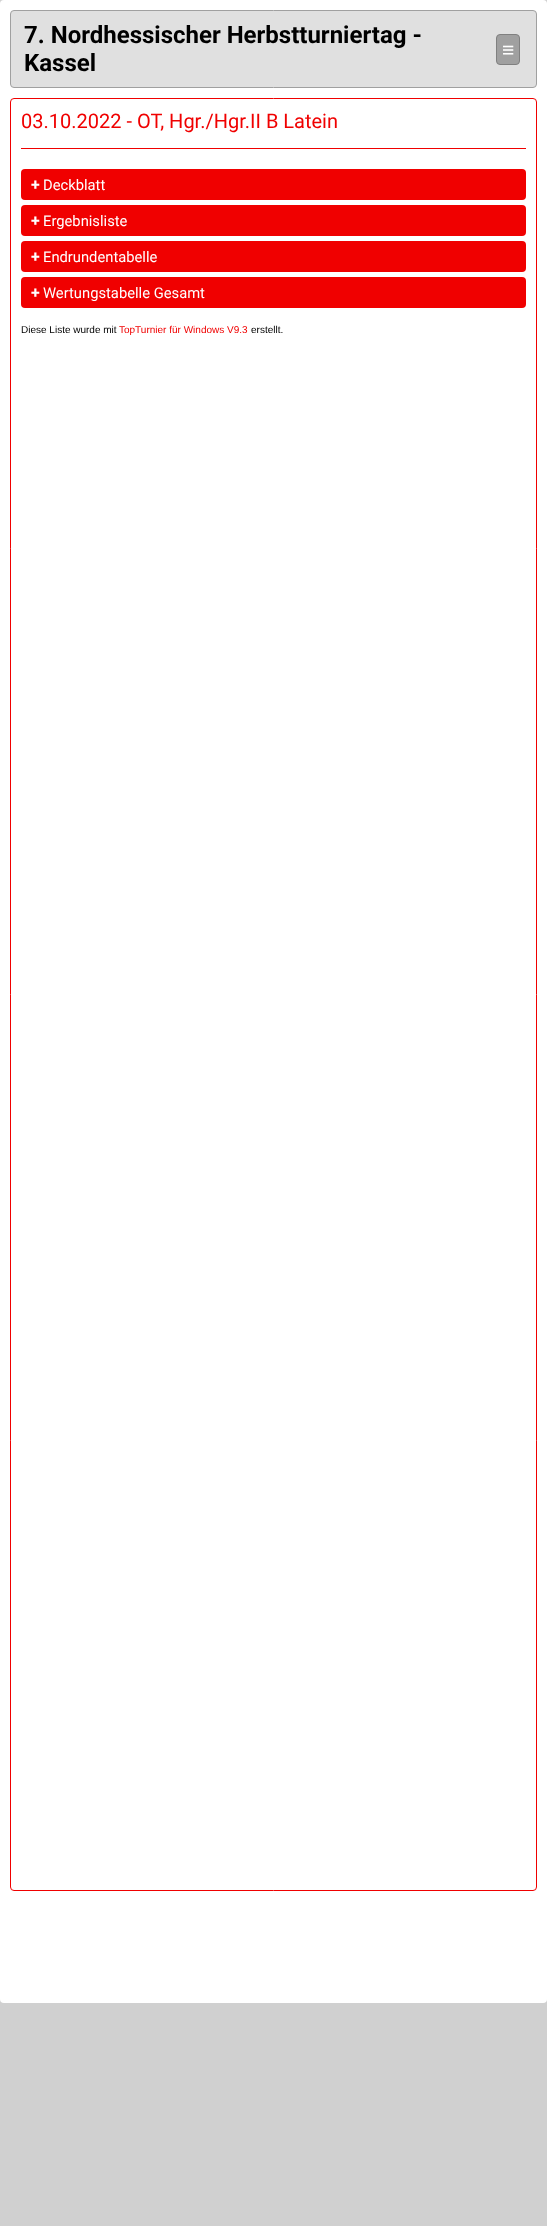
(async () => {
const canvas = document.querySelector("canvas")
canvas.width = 547
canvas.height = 2226
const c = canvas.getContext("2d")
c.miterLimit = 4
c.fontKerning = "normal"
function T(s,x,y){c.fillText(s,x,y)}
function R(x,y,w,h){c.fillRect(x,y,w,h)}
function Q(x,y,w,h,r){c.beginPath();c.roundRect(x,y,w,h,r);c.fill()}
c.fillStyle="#d0d0d0"
R(0,0,547,2226)
c.fillStyle="#fff"
Q(0,0,547,2003,4)
c.fillStyle="#e0e0e0"
c.beginPath()
c.roundRect(10.5,10.5,526,77,3.5)
c.fill()
c.strokeStyle="#a0a0a0"
c.stroke()
c.font="bold 24px Roboto"
c.fillStyle="#000"
T("7. Nordhessischer Herbstturniertag -",24,43)
T("Kassel",24,71)
c.fillStyle="#a0a0a0"
c.beginPath()
c.roundRect(496.5,34.5,23,30,3.5)
c.fill()
c.strokeStyle="#808080"
c.stroke()
c.font="bold 21px Liberation Sans"
c.fillStyle="#fff"
T("≡",502,57)
c.beginPath()
c.roundRect(10.5,98.5,526,1792,3.5)
c.strokeStyle="#f00000"
c.stroke()
c.font="20px Roboto"
c.fillStyle="#f00000"
T("03.10.2022 - OT, Hgr./Hgr.II B Latein",21,128)
R(21,148,505,1)
Q(21,169,505,31,4)
c.font="bold 16px Roboto"
c.fillStyle="#fff"
T("+",31,190)
c.font="14.75px Roboto"
T("Deckblatt",43,190)
c.fillStyle="#f00000"
Q(21,205,505,31,4)
c.font="bold 16px Roboto"
c.fillStyle="#fff"
T("+",31,226)
c.font="14.75px Roboto"
T("Ergebnisliste",43,226)
c.fillStyle="#f00000"
Q(21,241,505,31,4)
c.font="bold 16px Roboto"
c.fillStyle="#fff"
T("+",31,262)
c.font="14.75px Roboto"
T("Endrundentabelle",43,262)
c.fillStyle="#f00000"
Q(21,277,505,31,4)
c.font="bold 16px Roboto"
c.fillStyle="#fff"
T("+",31,298)
c.font="14.75px Roboto"
T("Wertungstabelle Gesamt",43,298)
c.font="10px Liberation Sans"
c.fillStyle="#000"
T("Diese Liste wurde mit",21,333)
c.fillStyle="#f00000"
T("TopTurnier für Windows V9.3",119,333)
c.fillStyle="#000"
T("erstellt.",251,333)
})()
